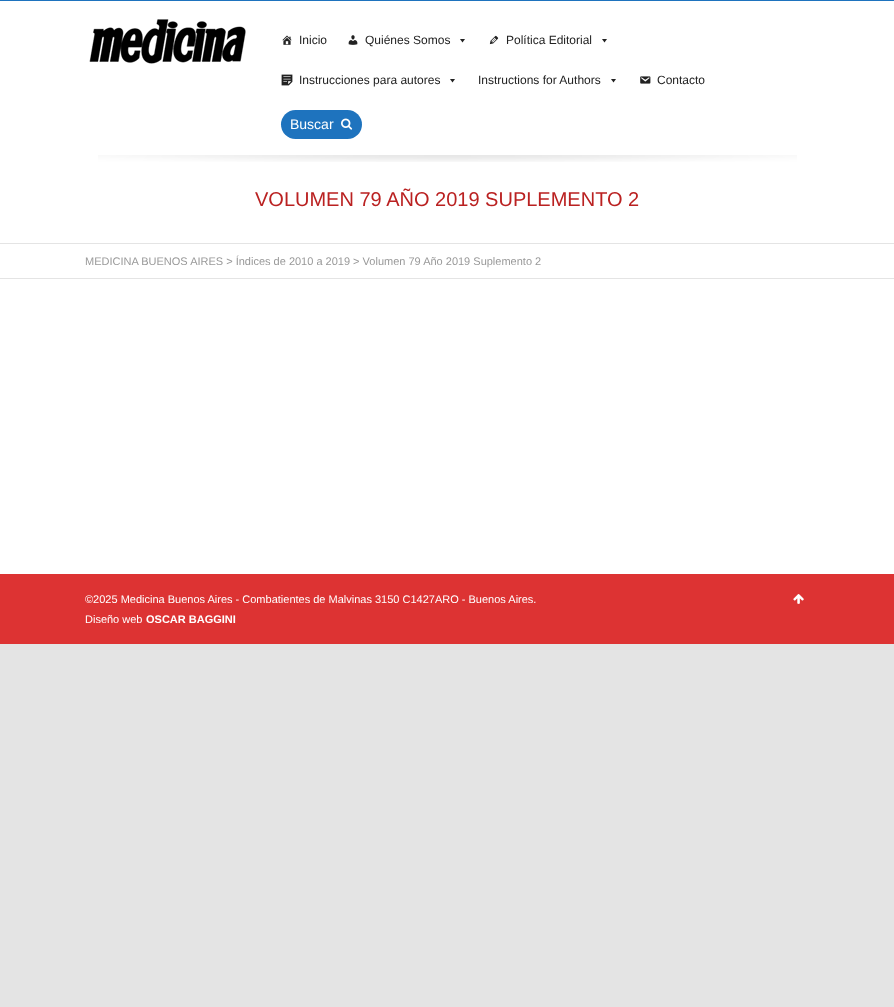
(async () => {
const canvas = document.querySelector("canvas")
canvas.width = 894
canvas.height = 1007
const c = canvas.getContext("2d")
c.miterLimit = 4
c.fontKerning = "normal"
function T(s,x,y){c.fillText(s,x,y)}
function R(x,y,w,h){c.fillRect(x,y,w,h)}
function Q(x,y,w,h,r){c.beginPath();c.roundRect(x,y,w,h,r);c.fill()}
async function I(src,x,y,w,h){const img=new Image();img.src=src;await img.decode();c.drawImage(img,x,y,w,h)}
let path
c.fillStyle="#e4e4e4"
R(0,0,894,1007)
c.fillStyle="#1e73be"
R(0,0,894,1)
c.fillStyle="#fff"
R(0,1,894,154)
await I("1.png",89,19,157,45)
await I("2.png",282,35,10,10)
c.font="12px Liberation Sans"
c.fillStyle="#222"
T("Inicio",299,44)
await I("3.png",348,35,10,10)
T("Quiénes Somos",365,44)
path = new Path2D("M465 39l-2.5 3.5l-2.5-3.5z")
c.fill(path)
await I("4.png",489,35,10,10)
T("Política Editorial",506,44)
path = new Path2D("M607 39l-2.5 3.5l-2.5-3.5z")
c.fill(path)
await I("5.png",281,74,12,12)
T("Instrucciones para autores",299,84)
path = new Path2D("M455 79l-2.5 3.5l-2.5-3.5z")
c.fill(path)
T("Instructions for Authors",478,84)
path = new Path2D("M616 79l-2.5 3.5l-2.5-3.5z")
c.fill(path)
await I("6.png",640,76,11,8)
T("Contacto",657,84)
c.fillStyle="#1e73be"
Q(281,110,81,29,14.5)
c.font="14px Liberation Sans"
c.fillStyle="#fff"
T("Buscar",290,129)
await I("7.png",341,118,12,12)
R(0,155,894,419)
await I("8.png",98,155,699,7)
c.fillStyle="#e4e4e4"
R(0,243,894,1)
c.font="20px Liberation Sans"
c.fillStyle="#ba2121"
T("VOLUMEN 79 AÑO 2019 SUPLEMENTO 2",255,206)
c.fillStyle="#e4e4e4"
R(0,278,894,1)
c.font="11px Liberation Sans"
c.fillStyle="#999"
T("MEDICINA BUENOS AIRES > Índices de 2010 a 2019 > Volumen 79 Año 2019 Suplemento 2",85,265)
c.fillStyle="#d33"
R(0,574,894,70)
c.fillStyle="#fff"
T("©2025 Medicina Buenos Aires - Combatientes de Malvinas 3150 C1427ARO - Buenos Aires.",85,603)
T("Diseño web",85,623)
c.font="bold 11px Liberation Sans"
T("OSCAR BAGGINI",146,623)
await I("9.png",793,594,11,10)
})()
